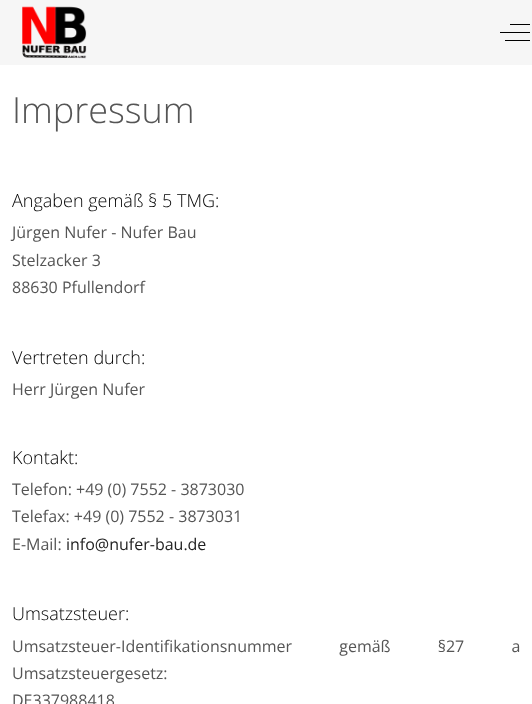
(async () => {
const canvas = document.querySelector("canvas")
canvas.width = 532
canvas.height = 704
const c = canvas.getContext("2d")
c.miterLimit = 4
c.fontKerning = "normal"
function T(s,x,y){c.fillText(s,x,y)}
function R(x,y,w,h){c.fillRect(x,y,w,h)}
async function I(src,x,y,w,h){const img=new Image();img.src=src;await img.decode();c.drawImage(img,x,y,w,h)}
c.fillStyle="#f6f6f6"
R(0,0,532,704)
await I("1.png",22,6,65,53)
c.fillStyle="#000"
R(500,32,30,1)
R(510,24,20,1)
R(505,40,25,1)
c.fillStyle="#fff"
R(0,65,532,639)
c.font="300 36px Open Sans"
c.fillStyle="#555"
T("Impressum",12,123)
c.font="300 18px Open Sans"
c.fillStyle="#000"
T("Angaben gemäß § 5 TMG:",12,207)
c.font="16px Open Sans"
c.fillStyle="#555"
T("Jürgen Nufer - Nufer Bau",12,238)
T("Stelzacker 3",12,266)
T("88630 Pfullendorf",12,293)
c.font="300 18px Open Sans"
c.fillStyle="#000"
T("Vertreten durch:",12,364)
c.font="16px Open Sans"
c.fillStyle="#555"
T("Herr Jürgen Nufer",12,395)
c.font="300 18px Open Sans"
c.fillStyle="#000"
T("Kontakt:",12,464)
c.font="16px Open Sans"
c.fillStyle="#555"
T("Telefon: +49 (0) 7552 - 3873030",12,495)
T("Telefax: +49 (0) 7552 - 3873031",12,522)
T("E-Mail:",12,550)
c.fillStyle="#222"
T("info@nufer-bau.de",66,550)
c.font="300 18px Open Sans"
c.fillStyle="#000"
T("Umsatzsteuer:",12,620)
c.wordSpacing="43px"
c.font="16px Open Sans"
c.fillStyle="#555"
T("Umsatzsteuer-Identifikationsnummer gemäß §27 a",12,652)
c.wordSpacing="0px"
T("Umsatzsteuergesetz:",12,679)
T("DE337988418",12,706)
})()
